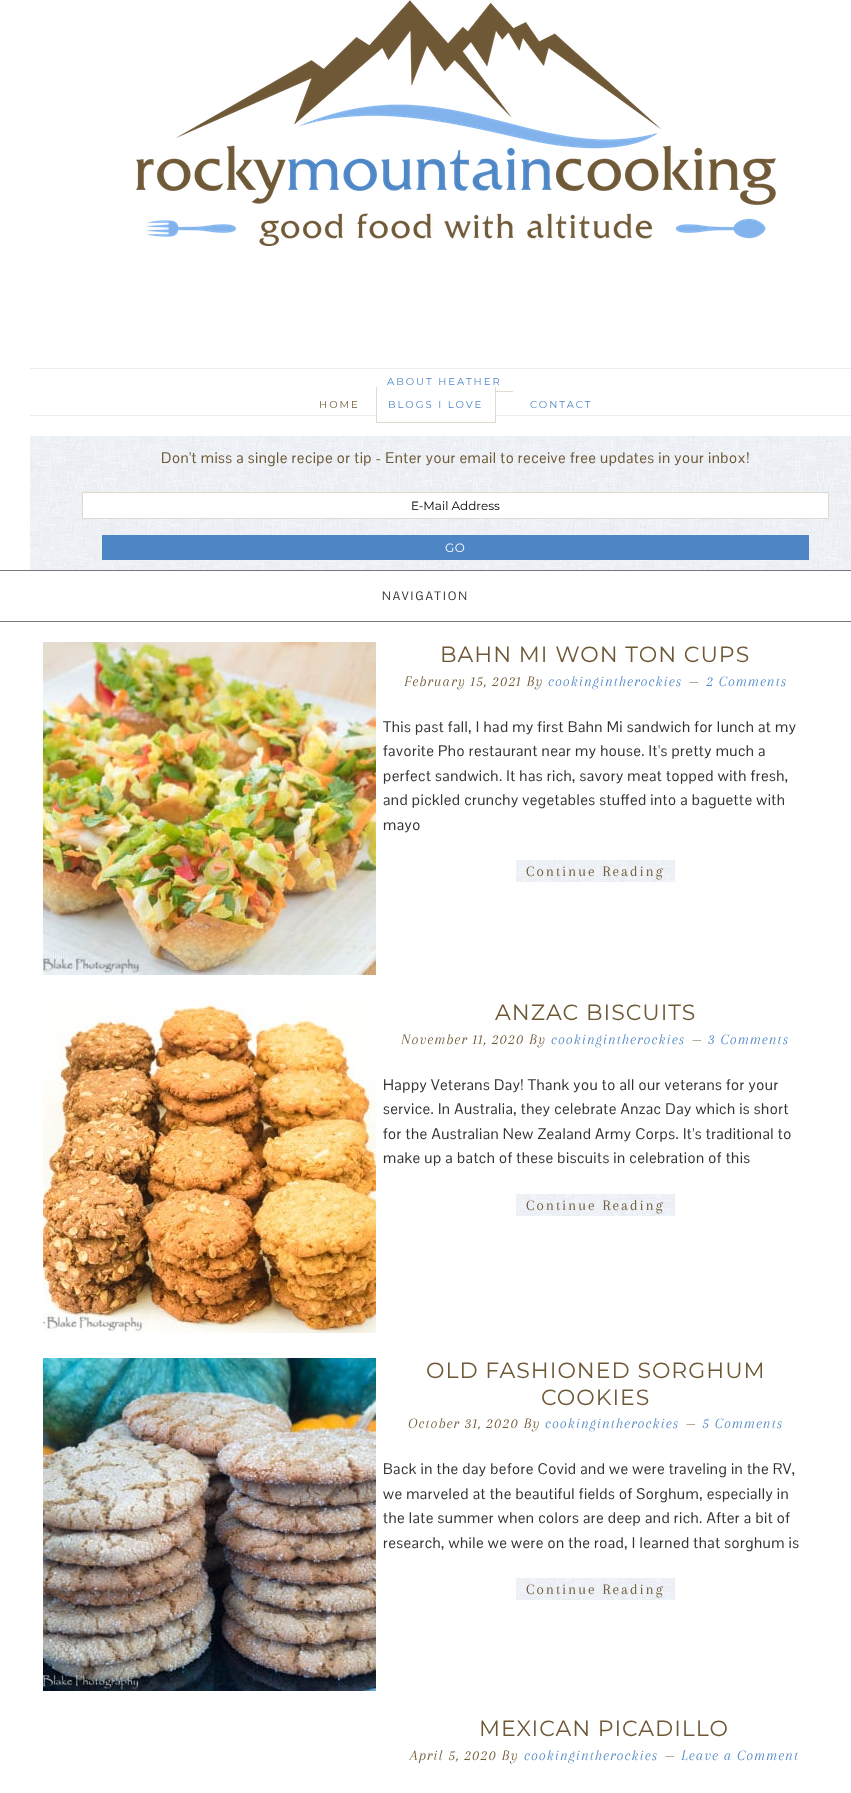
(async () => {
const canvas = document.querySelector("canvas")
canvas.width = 851
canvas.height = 1793
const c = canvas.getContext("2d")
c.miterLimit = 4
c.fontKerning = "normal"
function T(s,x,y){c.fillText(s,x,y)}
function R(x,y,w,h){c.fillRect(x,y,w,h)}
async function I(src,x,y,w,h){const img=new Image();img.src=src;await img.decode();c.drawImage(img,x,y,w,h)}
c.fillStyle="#fff"
R(0,0,851,1793)
await I("1.png",136,0,640,246)
c.fillStyle="#e9edf2"
R(30,368,821,1)
R(30,415,821,1)
c.letterSpacing="2px"
c.font="10px Montserrat"
c.fillStyle="#6e5836"
T("HOME",319,408)
c.fillStyle="#4e86c5"
T("ABOUT HEATHER",387,385)
c.fillStyle="#dfdacc"
R(496,391,17,1)
c.fillStyle="#4e86c5"
T("BLOGS I LOVE",388,408)
c.fillStyle="#fff"
R(377,415,118,1)
c.fillStyle="#dfdacc"
R(495,387,1,36)
R(376,422,120,1)
R(376,387,1,36)
c.fillStyle="#4e86c5"
T("CONTACT",530,408)
await I("2.png",30,436,821,134)
c.letterSpacing="0.5px"
c.font="15px Pontano Sans"
c.fillStyle="#6e5836"
T("Don't miss a single recipe or tip - Enter your email to receive free updates in your inbox!",161,463)
c.fillStyle="#fff"
c.beginPath()
c.rect(82.5,492.5,746,26)
c.fill()
c.strokeStyle="#dfdacc"
c.stroke()
c.letterSpacing="0px"
c.font="12px Montserrat"
c.fillStyle="#000"
T("E-Mail Address",411,510)
c.fillStyle="#4e86c5"
R(102,535,707,25)
c.letterSpacing="0.5px"
c.fillStyle="#fff"
T("GO",445,552)
c.fillStyle="#777"
R(0,570,851,1)
R(0,621,851,1)
c.letterSpacing="2px"
c.font="12px Pontano Sans"
c.fillStyle="#333"
T("NAVIGATION",382,600)
await I("3.png",43,642,333,333)
c.letterSpacing="1px"
c.font="22px Montserrat"
c.fillStyle="#6e5836"
T("BAHN MI WON TON CUPS",440,662)
c.font="italic 15px Arapey"
T("February 15, 2021 By",404,686)
c.fillStyle="#4e86c5"
T("cookingintherockies",548,686)
c.fillStyle="#6e5836"
T("—",689,686)
c.fillStyle="#4e86c5"
T("2 Comments",706,686)
c.letterSpacing="0.5px"
c.font="15px Pontano Sans"
c.fillStyle="#333"
T("This past fall, I had my first Bahn Mi sandwich for lunch at my",383,732)
T("favorite Pho restaurant near my house. It's pretty much a",383,756)
T("perfect sandwich. It has rich, savory meat topped with fresh,",383,781)
T("and pickled crunchy vegetables stuffed into a baguette with",383,805)
T("mayo",383,830)
await I("4.png",516,860,159,22)
c.letterSpacing="2px"
c.font="15px Arapey"
c.fillStyle="#6e5836"
T("Continue Reading",526,876)
await I("5.png",43,1000,333,333)
c.letterSpacing="1px"
c.font="22px Montserrat"
T("ANZAC BISCUITS",495,1020)
c.font="italic 15px Arapey"
T("November 11, 2020 By",401,1044)
c.fillStyle="#4e86c5"
T("cookingintherockies",551,1044)
c.fillStyle="#6e5836"
T("—",692,1044)
c.fillStyle="#4e86c5"
T("3 Comments",708,1044)
c.letterSpacing="0.5px"
c.font="15px Pontano Sans"
c.fillStyle="#333"
T("Happy Veterans Day! Thank you to all our veterans for your",383,1090)
T("service. In Australia, they celebrate Anzac Day which is short",383,1114)
T("for the Australian New Zealand Army Corps. It's traditional to",383,1139)
T("make up a batch of these biscuits in celebration of this",383,1163)
await I("4.png",516,1194,159,22)
c.letterSpacing="2px"
c.font="15px Arapey"
c.fillStyle="#6e5836"
T("Continue Reading",526,1210)
await I("6.png",43,1358,333,333)
c.letterSpacing="1px"
c.font="22px Montserrat"
T("OLD FASHIONED SORGHUM",426,1378)
T("COOKIES",541,1405)
c.font="italic 15px Arapey"
T("October 31, 2020 By",408,1428)
c.fillStyle="#4e86c5"
T("cookingintherockies",545,1428)
c.fillStyle="#6e5836"
T("—",686,1428)
c.fillStyle="#4e86c5"
T("5 Comments",702,1428)
c.letterSpacing="0.5px"
c.font="15px Pontano Sans"
c.fillStyle="#333"
T("Back in the day before Covid and we were traveling in the RV,",383,1474)
T("we marveled at the beautiful fields of Sorghum, especially in",383,1499)
T("the late summer when colors are deep and rich. After a bit of",383,1523)
T("research, while we were on the road, I learned that sorghum is",383,1548)
await I("4.png",516,1578,159,22)
c.letterSpacing="2px"
c.font="15px Arapey"
c.fillStyle="#6e5836"
T("Continue Reading",526,1594)
c.letterSpacing="1px"
c.font="22px Montserrat"
T("MEXICAN PICADILLO",479,1736)
c.font="italic 15px Arapey"
T("April 5, 2020 By",410,1760)
c.fillStyle="#4e86c5"
T("cookingintherockies",524,1760)
c.fillStyle="#6e5836"
T("—",665,1760)
c.fillStyle="#4e86c5"
T("Leave a Comment",681,1760)
})()
